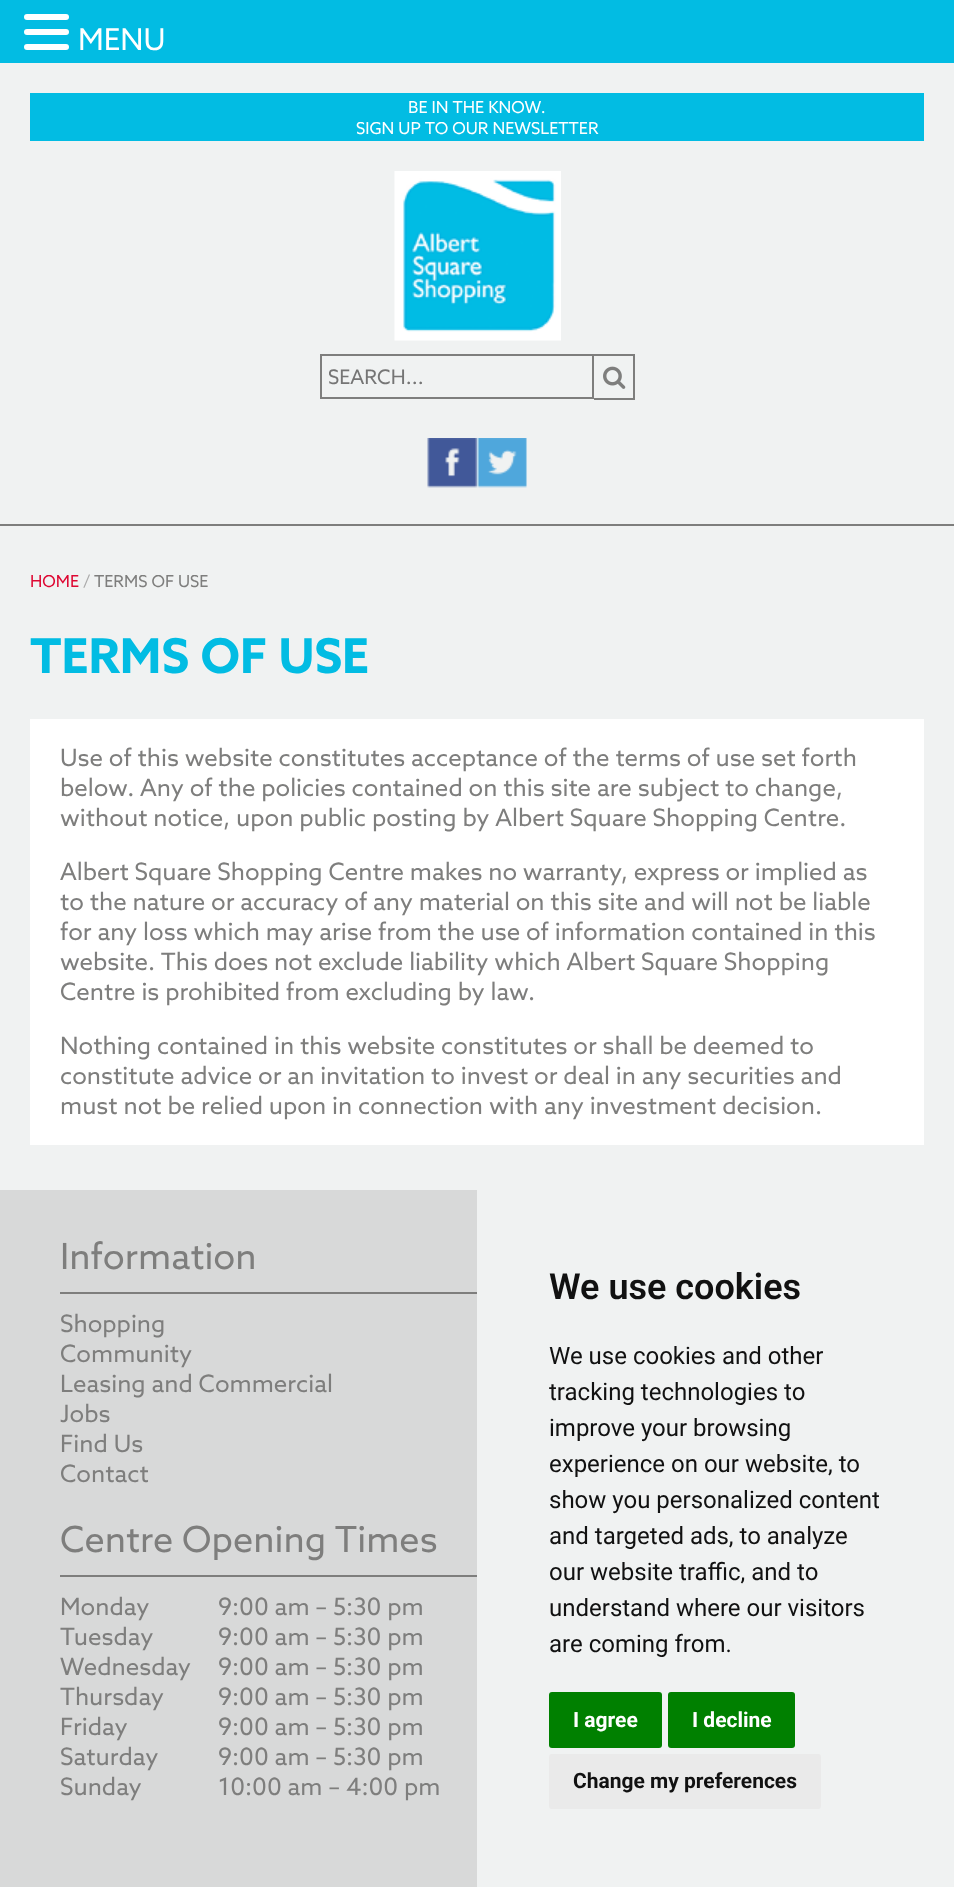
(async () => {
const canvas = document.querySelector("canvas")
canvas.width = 954
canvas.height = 1887
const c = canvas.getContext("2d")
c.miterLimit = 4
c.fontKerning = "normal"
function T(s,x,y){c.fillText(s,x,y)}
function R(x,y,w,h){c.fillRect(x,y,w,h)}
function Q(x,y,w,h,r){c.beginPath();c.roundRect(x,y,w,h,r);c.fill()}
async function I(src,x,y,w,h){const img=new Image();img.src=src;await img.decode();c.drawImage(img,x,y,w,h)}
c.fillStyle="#f0f2f2"
R(0,0,954,1887)
c.fillStyle="#02bce3"
R(0,0,954,63)
c.fillStyle="#fff"
Q(24,14,45,6,3)
Q(24,29,45,6,3)
Q(24,44,45,6,3)
c.font="30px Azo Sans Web"
T("MENU",78,50)
c.fillStyle="#7e7e7d"
R(0,524,954,2)
c.fillStyle="#02bce3"
R(30,93,894,48)
c.font="16.5px Azo Sans Web"
c.fillStyle="#fff"
T("BE IN THE KNOW.",408,113)
T("SIGN UP TO OUR NEWSLETTER",356,134)
await I("1.png",394,171,167,170)
c.strokeStyle="#7e7e7d"
c.lineWidth=2
c.strokeRect(321,355,272,43)
c.save()
c.beginPath()
c.rect(329,363,256,27)
c.clip()
c.font="20px Azo Sans Web"
c.fillStyle="#757575"
T("SEARCH...",328,384)
c.restore()
c.fillStyle="#7e7e7d"
R(594,354,41,2)
R(633,354,2,45)
R(594,398,41,2)
await I("2.png",603,366,23,23)
await I("3.png",427,438,50,50)
await I("4.png",477,438,50,50)
c.fillStyle="#de0833"
T("HOME",30,587)
c.fillStyle="#aaa"
T("/",83,587)
c.fillStyle="#7e7e7d"
T("TERMS OF USE",94,587)
c.font="bold 48px Azo Sans Web"
c.fillStyle="#02bce3"
T("TERMS OF USE",30,673)
c.fillStyle="#fff"
R(30,719,894,426)
c.font="24px Azo Sans Web"
c.fillStyle="#7e7e7d"
T("Use of this website constitutes acceptance of the terms of use set forth",60,766)
T("below. Any of the policies contained on this site are subject to change,",60,796)
T("without notice, upon public posting by Albert Square Shopping Centre.",60,826)
T("Albert Square Shopping Centre makes no warranty, express or implied as",60,880)
T("to the nature or accuracy of any material on this site and will not be liable",60,910)
T("for any loss which may arise from the use of information contained in this",60,940)
T("website. This does not exclude liability which Albert Square Shopping",60,970)
T("Centre is prohibited from excluding by law.",60,1000)
T("Nothing contained in this website constitutes or shall be deemed to",60,1054)
T("constitute advice or an invitation to invest or deal in any securities and",60,1084)
T("must not be relied upon in connection with any investment decision.",60,1114)
c.fillStyle="#d8d9d9"
R(0,1190,477,697)
c.fillStyle="#7e7e7d"
R(60,1292,417,2)
c.font="36px Azo Sans Web"
T("Information",60,1269)
c.font="24px Azo Sans Web"
T("Shopping",60,1332)
T("Community",60,1362)
T("Leasing and Commercial",60,1392)
T("Jobs",60,1422)
T("Find Us",60,1452)
T("Contact",60,1482)
R(60,1575,417,2)
c.font="36px Azo Sans Web"
T("Centre Opening Times",60,1552)
c.font="24px Azo Sans Web"
T("Monday",60,1615)
T("9:00 am – 5:30 pm",218,1615)
T("Tuesday",60,1645)
T("9:00 am – 5:30 pm",218,1645)
T("Wednesday",60,1675)
T("9:00 am – 5:30 pm",218,1675)
T("Thursday",60,1705)
T("9:00 am – 5:30 pm",218,1705)
T("Friday",60,1735)
T("9:00 am – 5:30 pm",218,1735)
T("Saturday",60,1765)
T("9:00 am – 5:30 pm",218,1765)
T("Sunday",60,1795)
T("10:00 am – 4:00 pm",218,1795)
c.font="600 36px Roboto"
c.fillStyle="#111"
T("We use cookies",549,1299)
c.font="24px Roboto"
T("We use cookies and other",549,1364)
T("tracking technologies to",549,1400)
T("improve your browsing",549,1436)
T("experience on our website, to",549,1472)
T("show you personalized content",549,1508)
T("and targeted ads, to analyze",549,1544)
T("our website traffic, and to",549,1580)
T("understand where our visitors",549,1616)
T("are coming from.",549,1652)
c.fillStyle="#008000"
Q(549,1692,113,56,3)
c.font="bold 21px Roboto"
c.fillStyle="#fff"
T("I agree",573,1727)
c.fillStyle="#008000"
Q(668,1692,127,56,3)
c.fillStyle="#fff"
T("I decline",692,1727)
c.fillStyle="#eaeaea"
Q(549,1754,272,55,3)
c.fillStyle="#111"
T("Change my preferences",573,1788)
})()
